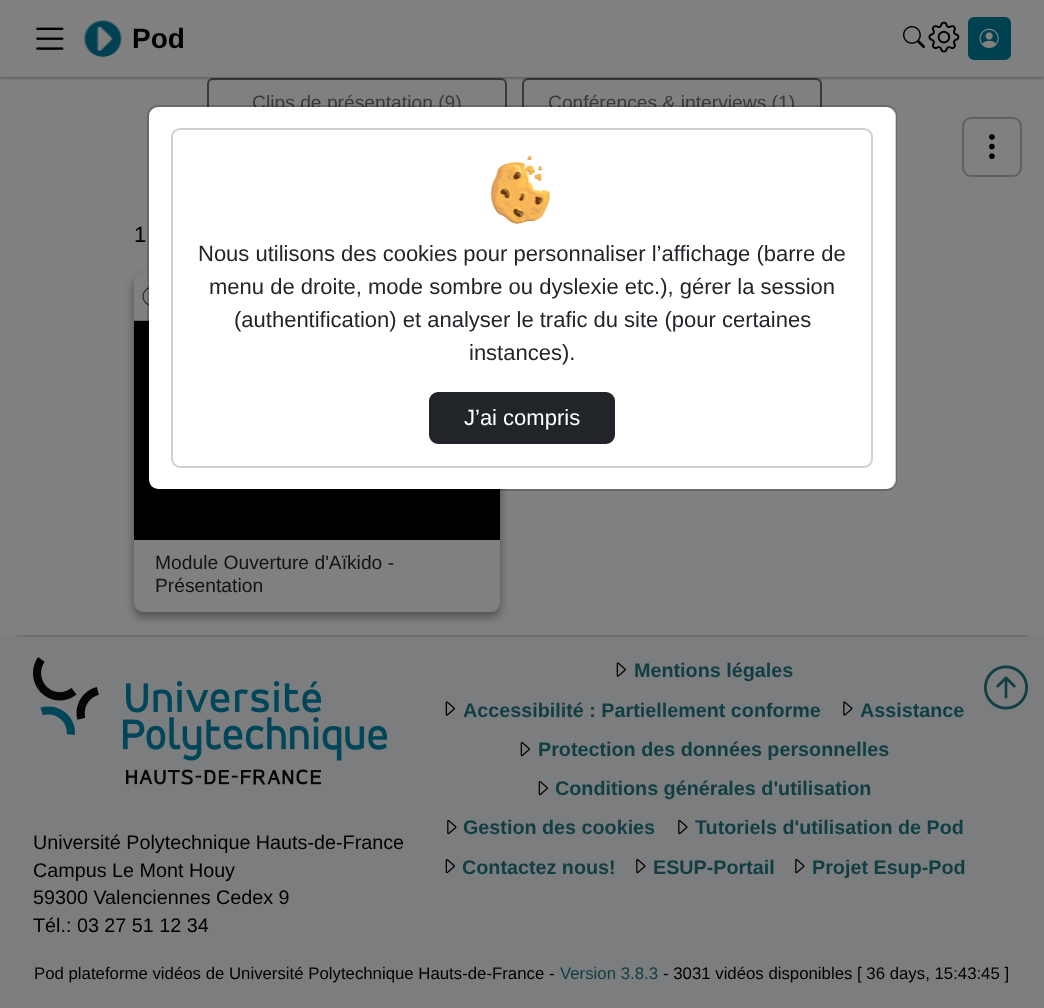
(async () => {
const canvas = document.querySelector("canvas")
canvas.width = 1044
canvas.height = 1008
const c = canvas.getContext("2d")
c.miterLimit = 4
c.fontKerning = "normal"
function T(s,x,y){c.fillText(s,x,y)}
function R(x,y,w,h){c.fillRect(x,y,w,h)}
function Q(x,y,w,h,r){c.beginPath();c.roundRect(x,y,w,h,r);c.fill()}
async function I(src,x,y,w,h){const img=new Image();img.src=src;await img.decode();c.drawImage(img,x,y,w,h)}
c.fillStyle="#808080"
R(0,0,1044,1008)
c.beginPath()
c.roundRect(208,79,298,46,5)
c.strokeStyle="#363b3f"
c.lineWidth=2
c.stroke()
c.beginPath()
c.roundRect(523,79,298,46,5)
c.stroke()
c.fillStyle="#0000003d"
c.filter="blur(1.5px)"
c.beginPath()
c.rect(0,2,1044,76)
c.fill()
c.filter="none"
c.fillStyle="#0000001f"
c.filter="blur(2px)"
c.beginPath()
c.rect(0,2,1044,76)
c.fill()
c.filter="none"
c.fillStyle="#808080"
R(0,0,1044,77)
await I("1.png",36,27,28,23)
await I("2.png",83,20,39,38)
c.font="bold 28px Liberation Sans"
c.fillStyle="#000"
T("Pod",132,48)
await I("3.png",903,26,22,22)
await I("4.png",928,21,32,32)
c.fillStyle="#004151"
c.beginPath()
c.roundRect(969,18,41,41,5)
c.fill()
c.strokeStyle="#004151"
c.stroke()
await I("5.png",979,28,20,20)
c.font="19.25px Liberation Sans"
c.fillStyle="#363b3f"
T("Clips de présentation (9)",252,109)
T("Conférences & interviews (1)",548,109)
c.font="22px Liberation Sans"
c.fillStyle="#000"
T("1",134,242)
c.fillStyle="#0000003b"
c.filter="blur(4.5px)"
c.beginPath()
c.roundRect(134,278,366,339,9)
c.fill()
c.filter="none"
c.fillStyle="#00000029"
c.filter="blur(4.5px)"
c.beginPath()
c.roundRect(134,278,366,339,9)
c.fill()
c.filter="none"
c.fillStyle="#808080"
Q(134,273,366,339,9)
c.fillStyle="#696969"
R(134,320,15,1)
await I("6.png",142,287,7,19)
c.fillStyle="#000"
R(134,321,366,219)
c.font="19.25px Liberation Sans"
c.fillStyle="#111315"
T("Module Ouverture d'Aïkido -",155,569)
T("Présentation",155,592)
c.beginPath()
c.roundRect(963,118,58,58,8)
c.strokeStyle="#606060"
c.stroke()
await I("7.png",989,134,6,26)
c.fillStyle="#fff"
Q(149,107,747,382,9)
c.beginPath()
c.roundRect(148,106,748,384,10)
c.strokeStyle="#0000002e"
c.stroke()
c.beginPath()
c.roundRect(172,129,700,338,8)
c.strokeStyle="#d2d2d2"
c.stroke()
await I("8.png",490,155,61,69)
c.font="22px Liberation Sans"
c.fillStyle="#212529"
T("Nous utilisons des cookies pour personnaliser l’affichage (barre de",198,261)
T("menu de droite, mode sombre ou dyslexie etc.), gérer la session",209,294)
T("(authentification) et analyser le trafic du site (pour certaines",234,327)
T("instances).",469,360)
c.beginPath()
c.roundRect(430,393,184,50,8)
c.fill()
c.strokeStyle="#212529"
c.stroke()
c.fillStyle="#fff"
T("J’ai compris",464,425)
c.fillStyle="#7b7d7e"
R(0,635,1044,373)
c.fillStyle="#6f6f6f"
R(17,635,1011,2)
await I("9.png",33,657,354,128)
c.font="19.75px Liberation Sans"
c.fillStyle="#000"
T("Université Polytechnique Hauts-de-France",33,849)
T("Campus Le Mont Houy",33,877)
T("59300 Valenciennes Cedex 9",33,904)
T("Tél.: 03 27 51 12 34",33,932)
await I("10.png",616,662,10,15)
c.font="bold 19.75px Liberation Sans"
c.fillStyle="#103e43"
T("Mentions légales",634,677)
await I("10.png",445,701,10,15)
T("Accessibilité : Partiellement conforme",463,717)
await I("11.png",843,701,10,15)
T("Assistance",860,717)
await I("12.png",520,742,10,15)
T("Protection des données personnelles",538,756)
await I("12.png",538,781,10,15)
T("Conditions générales d'utilisation",555,795)
await I("13.png",447,819,10,16)
T("Gestion des cookies",463,834)
await I("13.png",678,819,10,16)
T("Tutoriels d'utilisation de Pod",695,834)
await I("12.png",445,859,10,15)
T("Contactez nous!",462,874)
await I("13.png",636,858,10,16)
T("ESUP-Portail",653,874)
await I("13.png",795,858,10,16)
T("Projet Esup-Pod",812,874)
await I("14.png",984,665,44,45)
c.font="16.8px Liberation Sans"
c.fillStyle="#000"
T("Pod plateforme vidéos de Université Polytechnique Hauts-de-France -",34,979)
c.fillStyle="#103e43"
T("Version 3.8.3",560,979)
c.fillStyle="#000"
T("- 3031 vidéos disponibles [ 36 days, 15:43:45 ]",663,979)
})()
